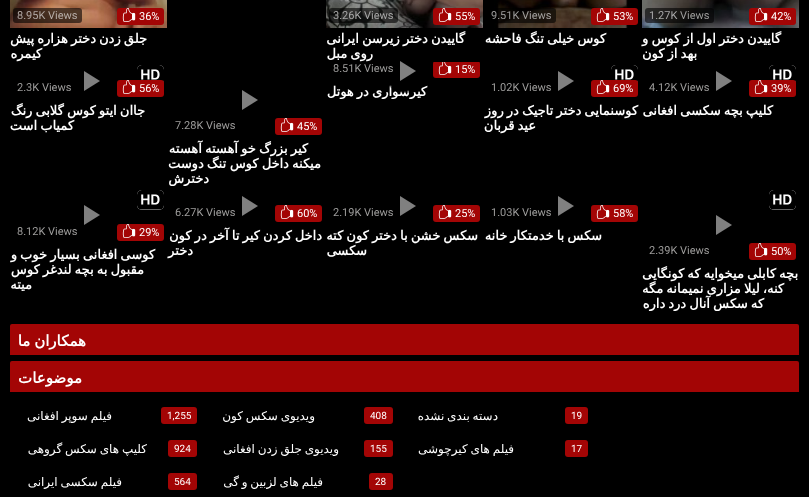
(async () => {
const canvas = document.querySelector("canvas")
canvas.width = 809
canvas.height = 497
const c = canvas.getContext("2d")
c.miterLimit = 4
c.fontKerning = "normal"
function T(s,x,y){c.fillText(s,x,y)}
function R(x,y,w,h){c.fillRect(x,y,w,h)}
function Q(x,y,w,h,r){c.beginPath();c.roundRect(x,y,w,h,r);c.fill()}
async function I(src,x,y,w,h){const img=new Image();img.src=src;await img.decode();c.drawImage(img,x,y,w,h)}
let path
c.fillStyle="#000"
R(0,0,809,497)
await I("1.png",642,0,157,28)
c.fillStyle="#a30505"
Q(749,8,47,17,3)
c.font="11px Roboto"
c.fillStyle="#fff"
T("42%",771,20)
await I("2.png",754,8,14,14)
c.fillStyle="#00000099"
Q(645,8,69,15,3)
c.fillStyle="#9d9c9b"
T("Views",680,19)
c.fillStyle="#a7a7a7"
T("1.27K",649,19)
c.wordSpacing="-1px"
c.direction="rtl"
c.font="bold 13px DejaVu Sans"
c.fillStyle="#fff"
T("گاییدن دختر اول از کوس و",781,43)
c.save()
c.beginPath()
c.rect(642,0,157,61)
c.clip()
T("بهد از کون",697,58)
c.restore()
await I("3.png",494,0,134,28)
c.fillStyle="#a30505"
Q(591,8,47,17,3)
c.wordSpacing="0px"
c.direction="ltr"
c.font="11px Roboto"
c.fillStyle="#fff"
T("53%",613,20)
await I("2.png",596,8,14,14)
c.fillStyle="#00000099"
Q(487,8,69,15,3)
c.fillStyle="#a3a19e"
T("Views",522,19)
c.fillStyle="#9d9c9b"
T("9.51K",491,19)
c.save()
c.beginPath()
c.rect(484,0,157,46)
c.clip()
c.wordSpacing="-1px"
c.direction="rtl"
c.font="bold 13px DejaVu Sans"
c.fillStyle="#fff"
T("کوس خیلی تنگ فاحشه",606,43)
c.restore()
await I("4.png",326,0,157,28)
c.fillStyle="#a30505"
Q(433,8,47,17,3)
c.fillStyle="#fff"
T("55%",455,20)
await I("2.png",438,8,14,14)
c.fillStyle="#00000099"
Q(329,8,69,15,3)
c.fillStyle="#a7a7a7"
T("Views",364,19)
T("3.26K",333,19)
c.wordSpacing="-1px"
c.direction="rtl"
c.font="bold 13px DejaVu Sans"
c.fillStyle="#fff"
T("گاییدن دختر زیرسن ایرانی",465,43)
T("روی مبل",373,58)
await I("5.png",10,0,157,28)
c.fillStyle="#a30505"
Q(117,8,47,17,3)
c.wordSpacing="0px"
c.direction="ltr"
c.font="11px Roboto"
c.fillStyle="#fff"
T("36%",139,20)
await I("2.png",122,8,14,14)
c.fillStyle="#00000099"
Q(13,8,69,15,3)
c.fillStyle="#b6ada7"
T("Views",48,19)
c.fillStyle="#b0a7a3"
T("8.95K",17,19)
c.wordSpacing="-1px"
c.direction="rtl"
c.font="bold 13px DejaVu Sans"
c.fillStyle="#fff"
T("جلق زدن دختر هزاره پیش",147,43)
c.wordSpacing="0px"
T("کیمره",42,58)
Q(769,65,27,20,5)
await I("6.png",769,65,27,18)
c.fillStyle="#808080"
path = new Path2D("M716 91v-20l16 10z")
c.fill(path)
c.fillStyle="#a30505"
Q(749,80,47,17,3)
c.direction="ltr"
c.font="11px Roboto"
c.fillStyle="#fff"
T("39%",771,92)
await I("2.png",754,80,14,14)
c.fillStyle="#9d9c9b"
T("4.12K Views",649,91)
c.wordSpacing="-1px"
c.direction="rtl"
c.font="bold 13px DejaVu Sans"
c.fillStyle="#fff"
T("کلیپ بچه سکسی افغانی",773,115)
Q(611,65,27,20,5)
await I("6.png",611,65,27,18)
c.fillStyle="#808080"
path = new Path2D("M558 91v-20l16 10z")
c.fill(path)
c.fillStyle="#a30505"
Q(591,80,47,17,3)
c.wordSpacing="0px"
c.direction="ltr"
c.font="11px Roboto"
c.fillStyle="#fff"
T("69%",613,92)
await I("2.png",596,80,14,14)
c.fillStyle="#9d9c9b"
T("1.02K Views",491,91)
c.wordSpacing="-1px"
c.direction="rtl"
c.font="bold 13px DejaVu Sans"
c.fillStyle="#fff"
T("کوسنمایی دختر تاجیک در روز",638,115)
T("عید قربان",536,130)
c.save()
c.beginPath()
c.rect(326,62,157,37)
c.clip()
T("کیرسواری در هوتل",427,96)
c.fillStyle="#00000080"
c.beginPath()
c.arc(405,71,22,0,7)
c.fill()
c.restore()
c.fillStyle="#808080"
path = new Path2D("M400 81v-20l16 10z")
c.fill(path)
c.save()
c.beginPath()
c.rect(326,62,157,37)
c.clip()
c.fillStyle="#a30505"
Q(433,61,47,17,3)
c.restore()
c.wordSpacing="0px"
c.direction="ltr"
c.font="11px Roboto"
c.fillStyle="#fff"
T("15%",455,73)
await I("7.png",438,62,14,13)
c.fillStyle="#9d9c9b"
T("8.51K Views",333,72)
c.fillStyle="#fff"
Q(137,65,27,20,5)
await I("6.png",137,65,27,18)
c.fillStyle="#808080"
path = new Path2D("M84 91v-20l16 10z")
c.fill(path)
c.fillStyle="#a30505"
Q(117,80,47,17,3)
c.fillStyle="#fff"
T("56%",139,92)
await I("2.png",122,80,14,14)
c.fillStyle="#9d9c9b"
T("2.3K Views",17,91)
c.wordSpacing="-1px"
c.direction="rtl"
c.font="bold 13px DejaVu Sans"
c.fillStyle="#fff"
T("جاان ایتو کوس گلابی رنگ",145,115)
T("کمیاب است",74,130)
c.fillStyle="#808080"
path = new Path2D("M242 110v-20l16 10z")
c.fill(path)
c.fillStyle="#a30505"
Q(275,118,47,17,3)
c.wordSpacing="0px"
c.direction="ltr"
c.font="11px Roboto"
c.fillStyle="#fff"
T("45%",297,130)
await I("2.png",280,118,14,14)
c.fillStyle="#9d9c9b"
T("7.28K Views",175,129)
c.wordSpacing="-1px"
c.direction="rtl"
c.font="bold 13px DejaVu Sans"
c.fillStyle="#fff"
T("کیر بزرگ خو آهسته آهسته",308,153)
T("میکنه داخل کوس",321,168)
T("تنگ دوست",226,168)
c.save()
c.beginPath()
c.rect(168,62,157,124)
c.clip()
c.wordSpacing="0px"
T("دخترش",209,183)
c.restore()
Q(769,190,27,20,5)
await I("8.png",769,190,27,20)
c.fillStyle="#808080"
path = new Path2D("M716 235v-20l16 10z")
c.fill(path)
c.fillStyle="#a30505"
Q(749,243,47,17,3)
c.wordSpacing="0px"
c.direction="ltr"
c.font="11px Roboto"
c.fillStyle="#fff"
T("50%",771,255)
await I("2.png",754,243,14,14)
c.fillStyle="#9d9c9b"
T("2.39K Views",649,254)
c.wordSpacing="-1px"
c.direction="rtl"
c.font="bold 13px DejaVu Sans"
c.fillStyle="#fff"
T("بچه کابلی میخوایه که کونگایی",798,278)
T("کنه، لیلا مزاری نمیمانه مگه",784,293)
c.save()
c.beginPath()
c.rect(642,187,157,124)
c.clip()
T("که سکس آنال درد داره",764,308)
c.restore()
c.fillStyle="#808080"
path = new Path2D("M558 216v-20l16 10z")
c.fill(path)
c.fillStyle="#a30505"
Q(591,205,47,17,3)
c.wordSpacing="0px"
c.direction="ltr"
c.font="11px Roboto"
c.fillStyle="#fff"
T("58%",613,217)
await I("2.png",596,205,14,14)
c.fillStyle="#9d9c9b"
T("1.03K Views",491,216)
c.save()
c.beginPath()
c.rect(484,187,157,56)
c.clip()
c.wordSpacing="-1px"
c.direction="rtl"
c.font="bold 13px DejaVu Sans"
c.fillStyle="#fff"
T("سکس با خدمتکار خانه",602,240)
c.restore()
c.fillStyle="#808080"
path = new Path2D("M400 216v-20l16 10z")
c.fill(path)
c.fillStyle="#a30505"
Q(433,205,47,17,3)
c.fillStyle="#fff"
T("25%",455,217)
await I("2.png",438,205,14,14)
c.fillStyle="#9d9c9b"
T("2.19K Views",333,216)
c.wordSpacing="-1px"
c.direction="rtl"
c.font="bold 13px DejaVu Sans"
c.fillStyle="#fff"
T("سکس خشن با دختر کون کته",478,240)
c.wordSpacing="0px"
T("سکسی",367,255)
c.fillStyle="#808080"
path = new Path2D("M242 216v-20l16 10z")
c.fill(path)
c.fillStyle="#a30505"
Q(275,205,47,17,3)
c.direction="ltr"
c.font="11px Roboto"
c.fillStyle="#fff"
T("60%",297,217)
await I("2.png",280,205,14,14)
c.fillStyle="#9d9c9b"
T("6.27K Views",175,216)
c.wordSpacing="-1px"
c.direction="rtl"
c.font="bold 13px DejaVu Sans"
c.fillStyle="#fff"
T("داخل کردن کیر تا آخر در کون",322,240)
c.wordSpacing="0px"
T("دختر",193,255)
Q(137,190,27,20,5)
await I("8.png",137,190,27,20)
c.fillStyle="#808080"
path = new Path2D("M84 225v-20l16 10z")
c.fill(path)
c.fillStyle="#a30505"
Q(117,224,47,17,3)
c.direction="ltr"
c.font="11px Roboto"
c.fillStyle="#fff"
T("29%",139,236)
await I("2.png",122,224,14,14)
c.fillStyle="#9d9c9b"
T("8.12K Views",17,235)
c.wordSpacing="-1px"
c.direction="rtl"
c.font="bold 13px DejaVu Sans"
c.fillStyle="#fff"
T("کوسی افغانی بسیار خوب و",155,259)
T("مقبول به بچه لندغر کوس",144,274)
c.wordSpacing="0px"
T("میته",32,289)
c.fillStyle="#a30505"
c.beginPath()
c.roundRect(10,324,789,31,[2,2,0,0])
c.fill()
c.wordSpacing="-1px"
c.font="bold 15px DejaVu Sans"
c.fillStyle="#fff"
T("همکاران ما",86,346)
c.fillStyle="#a30505"
c.beginPath()
c.roundRect(10,361,789,31,[2,2,0,0])
c.fill()
c.wordSpacing="0px"
c.fillStyle="#fff"
T("موضوعات",82,383)
c.fillStyle="#a30505"
Q(565,407,23,17,3)
c.direction="ltr"
c.font="10px Roboto"
c.fillStyle="#fff"
T("19",571,419)
c.wordSpacing="-1px"
c.direction="rtl"
c.font="12px DejaVu Sans"
T("دسته بندی نشده",498,420)
c.fillStyle="#a30505"
Q(565,440,23,17,3)
c.wordSpacing="0px"
c.direction="ltr"
c.font="10px Roboto"
c.fillStyle="#fff"
T("17",571,452)
c.wordSpacing="-1px"
c.direction="rtl"
c.font="12px DejaVu Sans"
T("فیلم های کیرچوشی",514,453)
c.fillStyle="#a30505"
Q(364,407,29,17,3)
c.wordSpacing="0px"
c.direction="ltr"
c.font="10px Roboto"
c.fillStyle="#fff"
T("408",370,419)
c.wordSpacing="-1px"
c.direction="rtl"
c.font="12px DejaVu Sans"
T("ویدیوی سکس کون",315,420)
c.fillStyle="#a30505"
Q(364,440,29,17,3)
c.wordSpacing="0px"
c.direction="ltr"
c.font="10px Roboto"
c.fillStyle="#fff"
T("155",370,452)
c.wordSpacing="-1px"
c.direction="rtl"
c.font="12px DejaVu Sans"
T("ویدیوی جلق زدن افغانی",339,453)
c.fillStyle="#a30505"
Q(369,473,24,17,3)
c.wordSpacing="0px"
c.direction="ltr"
c.font="10px Roboto"
c.fillStyle="#fff"
T("28",375,485)
c.wordSpacing="-1px"
c.direction="rtl"
c.font="12px DejaVu Sans"
T("فیلم های لزبین و گی",323,486)
c.fillStyle="#a30505"
Q(161,407,36,17,3)
c.wordSpacing="0px"
c.direction="ltr"
c.font="10px Roboto"
c.fillStyle="#fff"
T("1,255",167,419)
c.wordSpacing="-1px"
c.direction="rtl"
c.font="12px DejaVu Sans"
T("فیلم سوپر افغانی",112,420)
c.fillStyle="#a30505"
Q(168,440,29,17,3)
c.wordSpacing="0px"
c.direction="ltr"
c.font="10px Roboto"
c.fillStyle="#fff"
T("924",174,452)
c.wordSpacing="-1px"
c.direction="rtl"
c.font="12px DejaVu Sans"
T("کلیپ های سکس گروهی",147,453)
c.fillStyle="#a30505"
Q(168,473,29,17,3)
c.wordSpacing="0px"
c.direction="ltr"
c.font="10px Roboto"
c.fillStyle="#fff"
T("564",174,485)
c.wordSpacing="-1px"
c.direction="rtl"
c.font="12px DejaVu Sans"
T("فیلم سکسی ایرانی",122,486)
})()
